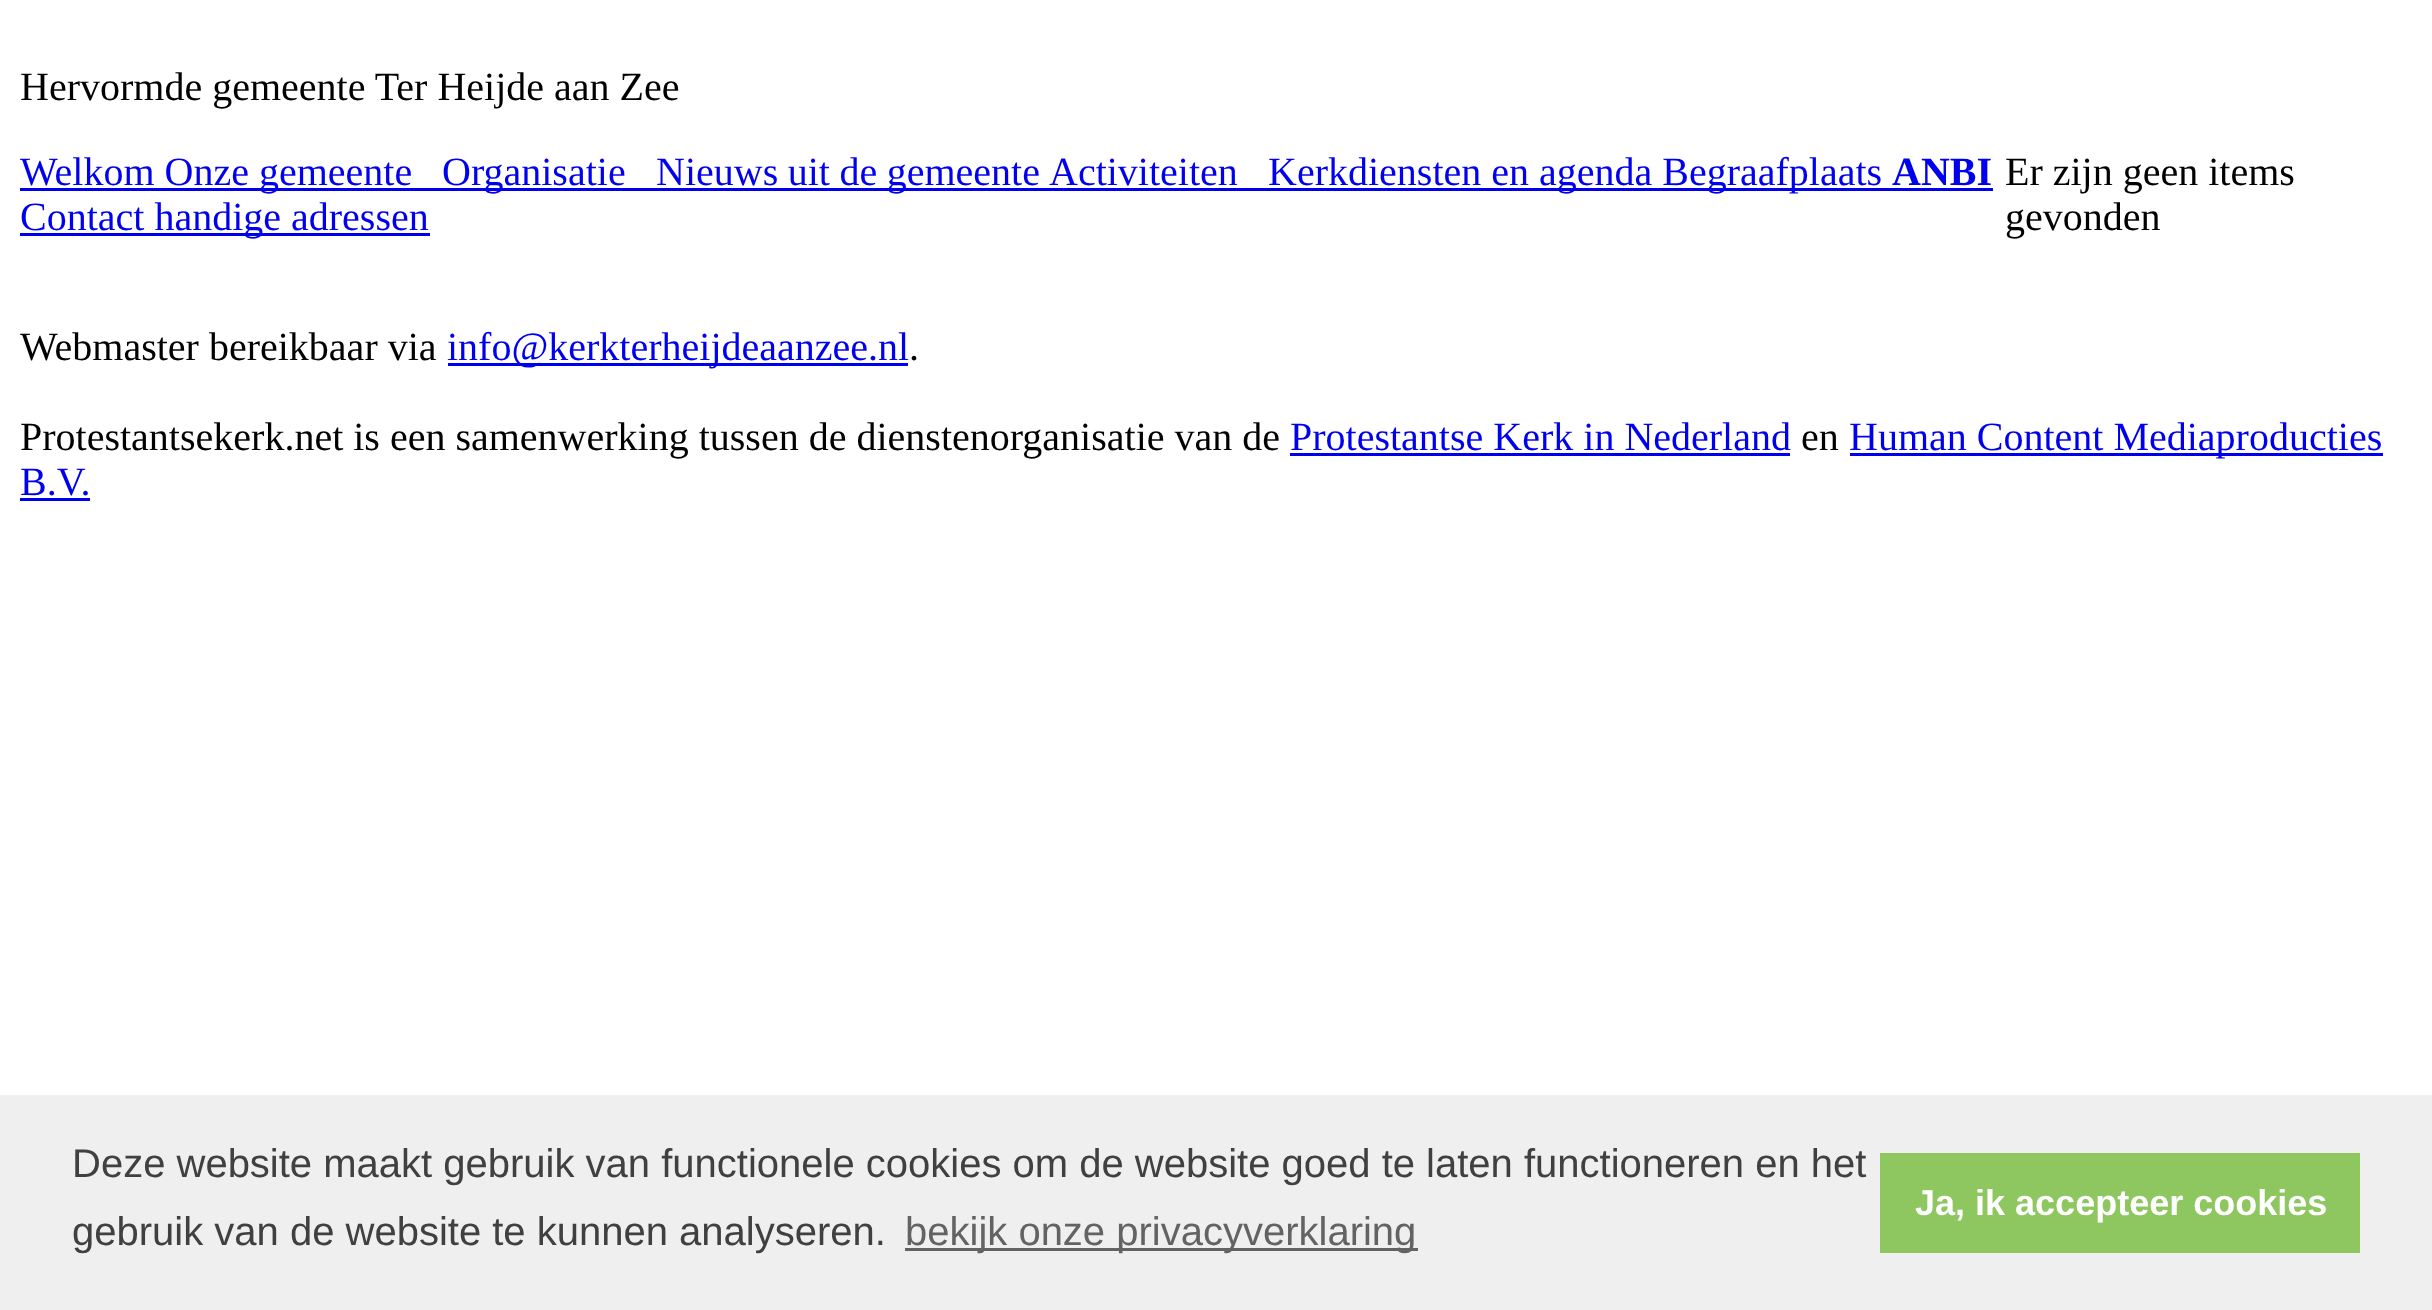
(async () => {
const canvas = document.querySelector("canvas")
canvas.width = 2432
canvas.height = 1310
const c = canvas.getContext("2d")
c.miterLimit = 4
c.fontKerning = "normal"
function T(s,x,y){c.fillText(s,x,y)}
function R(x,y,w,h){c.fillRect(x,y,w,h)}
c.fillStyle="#fff"
R(0,0,2432,1310)
c.font="40px Liberation Serif"
c.fillStyle="#000"
T("Hervormde gemeente Ter Heijde aan Zee",20,100)
c.fillStyle="#00e"
R(20,188,1973,3)
T("Welkom Onze gemeente",20,185)
T("Organisatie",442,185)
c.wordSpacing="-0.5px"
T("Nieuws uit de gemeente",656,185)
c.wordSpacing="0px"
T("Activiteiten",1049,185)
T("Kerkdiensten en agenda Begraafplaats",1268,185)
c.font="bold 40px Liberation Serif"
T("ANBI",1892,185)
R(20,233,410,3)
c.font="40px Liberation Serif"
T("Contact handige adressen",20,230)
c.fillStyle="#000"
T("Er zijn geen items",2005,185)
T("gevonden",2005,230)
T("Webmaster bereikbaar via",20,360)
c.fillStyle="#00e"
R(448,363,460,3)
T("info@kerkterheijdeaanzee.nl",447,360)
c.fillStyle="#000"
T(".",909,360)
T("Protestantsekerk.net is een samenwerking tussen de dienstenorganisatie van de",20,450)
c.fillStyle="#00e"
T("Protestantse Kerk in Nederland",1290,450)
R(1290,453,500,3)
c.fillStyle="#000"
T("en",1801,450)
c.fillStyle="#00e"
R(1850,453,533,3)
T("Human Content Mediaproducties",1849,450)
T("B.V.",20,495)
R(20,498,70,3)
c.fillStyle="#efefef"
R(0,1095,2432,215)
c.font="40px Liberation Sans"
c.fillStyle="#404040"
T("Deze website maakt gebruik van functionele cookies om de website goed te laten functioneren en het",72,1177)
T("gebruik van de website te kunnen analyseren.",72,1245)
c.fillStyle="#636363"
R(905,1248,513,3)
T("bekijk onze privacyverklaring",905,1245)
c.fillStyle="#8ec760"
R(1880,1153,480,100)
c.font="bold 36px Liberation Sans"
c.fillStyle="#fff"
T("Ja, ik accepteer cookies",1915,1215)
})()
